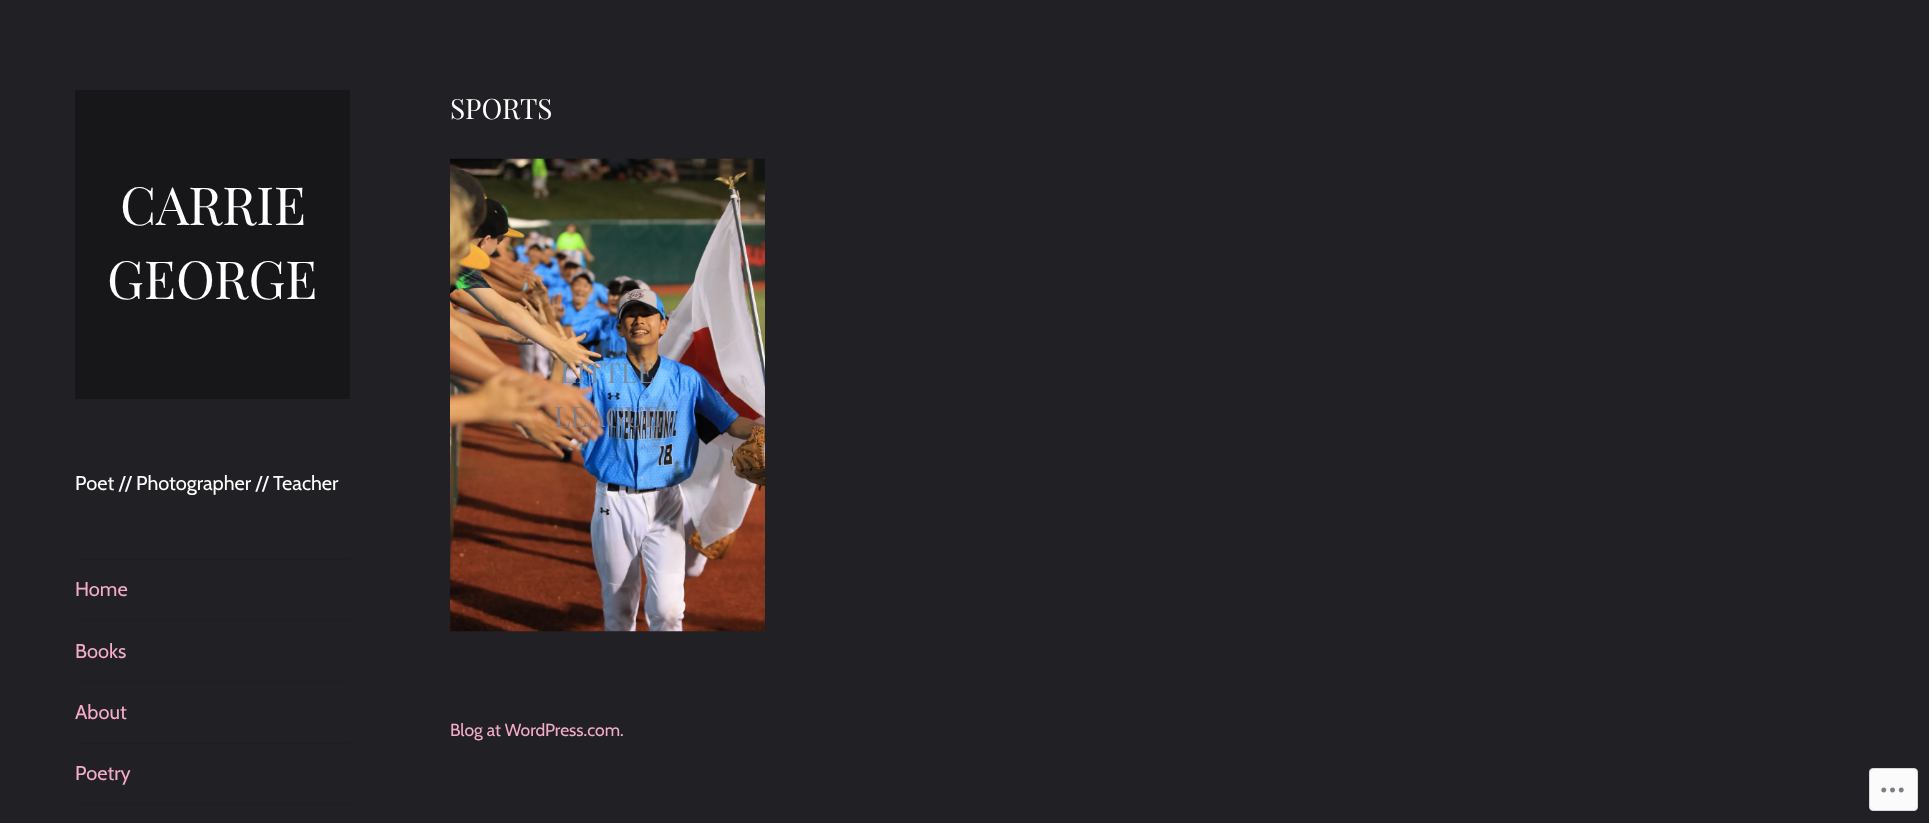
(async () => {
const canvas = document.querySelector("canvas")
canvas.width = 1929
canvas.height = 823
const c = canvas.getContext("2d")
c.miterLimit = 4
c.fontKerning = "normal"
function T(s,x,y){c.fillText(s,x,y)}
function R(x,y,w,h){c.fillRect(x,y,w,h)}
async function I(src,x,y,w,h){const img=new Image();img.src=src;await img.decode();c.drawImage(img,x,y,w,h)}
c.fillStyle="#212125"
R(0,0,1929,823)
c.fillStyle="#17171a"
R(75,90,275,309)
c.font="52.5px Playfair Display"
c.fillStyle="#fff"
T("CARRIE",120,225)
T("GEORGE",107,299)
c.font="20px Cabin"
T("Poet // Photographer // Teacher",75,490)
c.fillStyle="#1e1e21"
R(75,559,275,1)
c.fillStyle="#f4adc6"
T("Home",75,596)
c.fillStyle="#1e1e21"
R(75,620,275,1)
c.fillStyle="#f4adc6"
T("Books",75,658)
c.fillStyle="#1e1e21"
R(75,681,275,1)
c.fillStyle="#f4adc6"
T("About",75,719)
c.fillStyle="#1e1e21"
R(75,743,275,1)
c.fillStyle="#f4adc6"
T("Poetry",75,780)
c.fillStyle="#1e1e21"
R(75,804,275,1)
c.font="28px Playfair Display"
c.fillStyle="#fff"
T("SPORTS",450,119)
await I("1.png",450,158,315,474)
c.fillStyle="#748fad"
T("LITTLE",560,383)
c.fillStyle="#7f7b87"
T("LEAGUE",554,427)
c.font="17.5px Cabin"
c.fillStyle="#f4adc6"
T("Blog at WordPress.com.",450,736)
c.fillStyle="#fbfbfb"
c.beginPath()
c.roundRect(1869.5,768.5,48,42,3.5)
c.fill()
c.strokeStyle="#d8d8da"
c.stroke()
await I("2.png",1881,787,23,6)
})()
